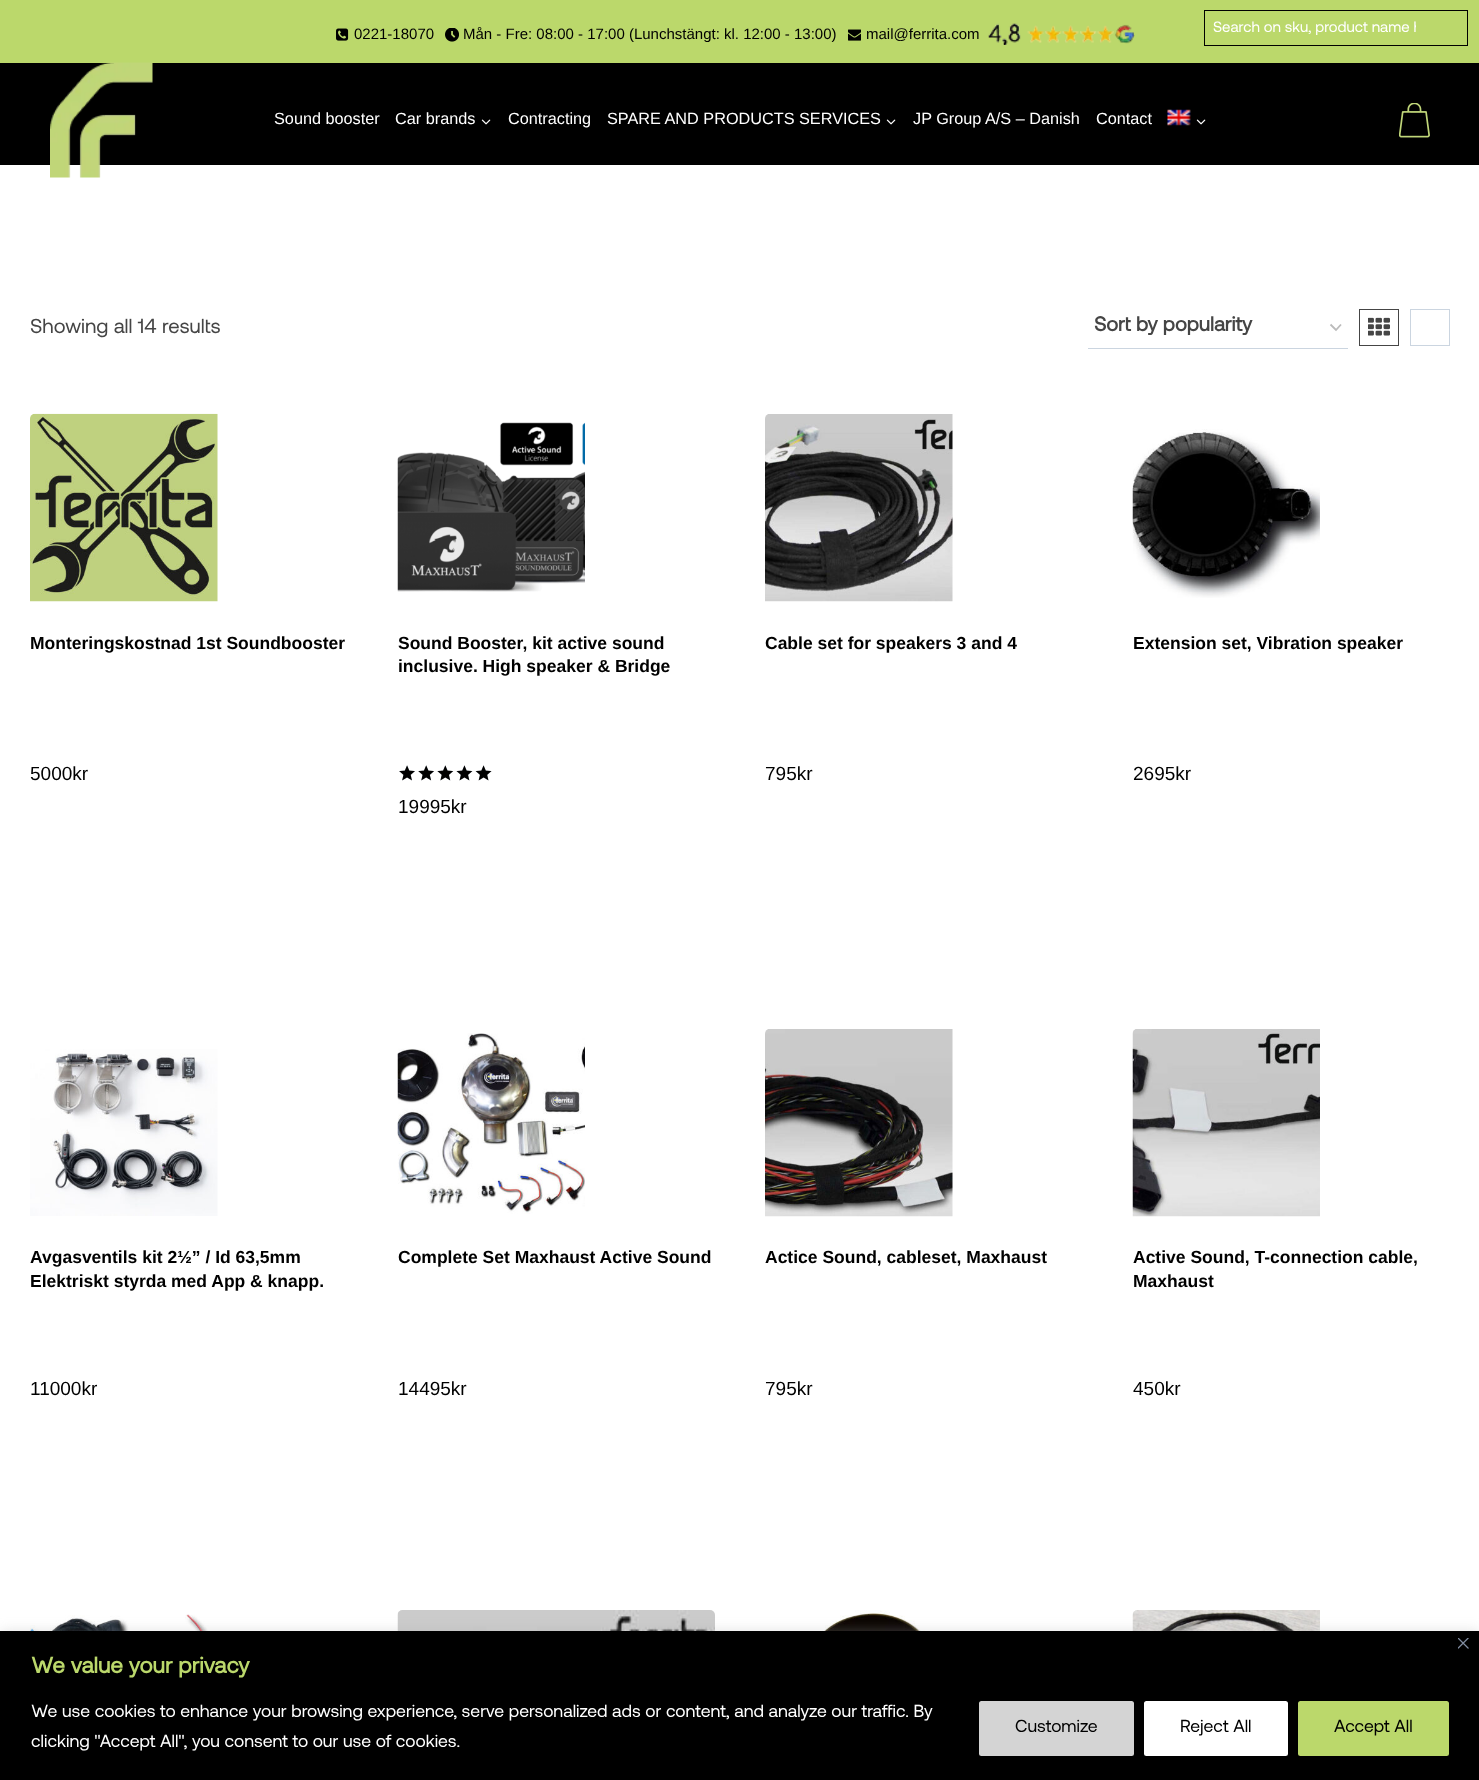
(async () => {
const canvas = document.querySelector("canvas")
canvas.width = 1479
canvas.height = 1780
const c = canvas.getContext("2d")
c.miterLimit = 4
c.fontKerning = "normal"
function T(s,x,y){c.fillText(s,x,y)}
function R(x,y,w,h){c.fillRect(x,y,w,h)}
async function I(src,x,y,w,h){const img=new Image();img.src=src;await img.decode();c.drawImage(img,x,y,w,h)}
let path
c.fillStyle="#fff"
R(0,0,1479,1780)
c.fillStyle="#000"
R(0,63,1479,102)
c.fillStyle="#bbd86b"
R(0,0,1479,63)
await I("1.png",336,28,13,13)
c.font="15px Liberation Sans"
c.fillStyle="#000"
T("0221-18070",354,39)
await I("2.png",445,28,14,14)
T("Mån - Fre: 08:00 - 17:00 (Lunchstängt: kl. 12:00 - 13:00)",463,39)
await I("3.png",848,29,13,12)
T("mail@ferrita.com",866,39)
await I("4.png",988,23,147,22)
c.strokeStyle="#000"
c.strokeRect(1204.5,10.5,263,35)
c.save()
c.beginPath()
c.rect(1213,19,203,17)
c.clip()
c.font="15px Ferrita"
c.fillStyle="#fff"
T("Search on sku, product name h",1213,32)
c.restore()
await I("5.png",50,62,103,116)
c.font="16.25px Liberation Sans"
c.fillStyle="#fff"
T("Sound booster",274,124)
T("Car brands",395,124)
await I("6.png",481,119,10,6)
T("Contracting",508,124)
T("SPARE AND PRODUCTS SERVICES",607,124)
await I("6.png",886,119,10,6)
T("JP Group A/S – Danish",913,124)
T("Contact",1096,124)
await I("7.png",1167,109,24,17)
await I("6.png",1196,119,10,6)
await I("8.png",1399,103,31,35)
c.font="20.25px Ferrita"
c.fillStyle="#454545"
T("Showing all 14 results",30,333)
path = new Path2D("M1330.5 324.5l5.5 5.5l5-5.5")
c.strokeStyle="#bbb"
c.lineWidth=1.8
c.stroke(path)
c.fillStyle="#cbd5e0"
R(1088,348,260,1)
c.font="bold 20.25px Ferrita"
c.fillStyle="#454545"
T("Sort by popularity",1094,331)
c.strokeStyle="#454545"
c.lineWidth=1
c.strokeRect(1359.5,309.5,39,36)
await I("9.png",1368,317,22,19)
c.strokeStyle="#cbd5e0"
c.strokeRect(1410.5,309.5,39,36)
await I("10.png",30,413,188,189)
c.font="bold 17.5px Liberation Sans"
c.fillStyle="#000"
T("Monteringskostnad 1st Soundbooster",30,649)
c.font="19px Liberation Sans"
T("5000kr",30,780)
await I("11.png",397,422,188,170)
c.font="bold 17.5px Liberation Sans"
T("Sound Booster, kit active sound",398,649)
T("inclusive. High speaker & Bridge",398,672)
await I("12.png",399,765,93,16)
await I("13.png",399,765,93,16)
c.font="19px Liberation Sans"
T("19995kr",398,813)
await I("14.png",765,414,188,188)
c.font="bold 17.5px Liberation Sans"
T("Cable set for speakers 3 and 4",765,649)
c.font="19px Liberation Sans"
T("795kr",765,780)
await I("15.png",1132,429,188,169)
c.font="bold 17.5px Liberation Sans"
T("Extension set, Vibration speaker",1133,649)
c.font="19px Liberation Sans"
T("2695kr",1133,780)
await I("16.png",30,1049,188,167)
c.font="bold 17.5px Liberation Sans"
T("Avgasventils kit 2½” / Id 63,5mm",30,1263)
T("Elektriskt styrda med App & knapp.",30,1287)
c.font="19px Liberation Sans"
T("11000kr",30,1395)
await I("17.png",397,1033,188,181)
c.font="bold 17.5px Liberation Sans"
T("Complete Set Maxhaust Active Sound",398,1263)
c.font="19px Liberation Sans"
T("14495kr",398,1395)
await I("18.png",765,1029,188,188)
c.font="bold 17.5px Liberation Sans"
T("Actice Sound, cableset, Maxhaust",765,1263)
c.font="19px Liberation Sans"
T("795kr",765,1395)
await I("19.png",1132,1029,188,188)
c.font="bold 17.5px Liberation Sans"
T("Active Sound, T-connection cable,",1133,1263)
T("Maxhaust",1133,1287)
c.font="19px Liberation Sans"
T("450kr",1133,1395)
await I("20.png",30,1614,188,17)
await I("21.png",397,1610,318,21)
await I("22.png",775,1610,166,21)
await I("23.png",1132,1610,188,21)
c.fillStyle="#acabab4d"
c.filter="blur(6px)"
c.beginPath()
c.rect(0,1630,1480,149)
c.fill()
c.filter="none"
c.fillStyle="#000"
R(0,1631,1479,149)
await I("24.png",1458,1638,11,11)
c.font="bold 22.5px Ferrita"
c.fillStyle="#bbd86b"
T("We value your privacy",31,1673)
c.font="17.5px Ferrita"
c.fillStyle="#fff"
T("We use cookies to enhance your browsing experience, serve personalized ads or content, and analyze our traffic. By",31,1717)
T("clicking \"Accept All\", you consent to our use of cookies.",31,1747)
c.fillStyle="#d4d4d4"
c.beginPath()
c.roundRect(980.5,1702.5,152,52,1)
c.fill()
c.strokeStyle="#d4d4d4"
c.lineWidth=3
c.stroke()
c.fillStyle="#000"
T("Customize",1015,1732)
c.fillStyle="#fff"
c.beginPath()
c.roundRect(1145.5,1702.5,141,52,1)
c.fill()
c.strokeStyle="#fff"
c.stroke()
c.fillStyle="#000"
T("Reject All",1180,1732)
c.fillStyle="#bbd86b"
c.beginPath()
c.roundRect(1299.5,1702.5,148,52,1)
c.fill()
c.strokeStyle="#bbd86b"
c.stroke()
c.fillStyle="#000"
T("Accept All",1334,1732)
})()
